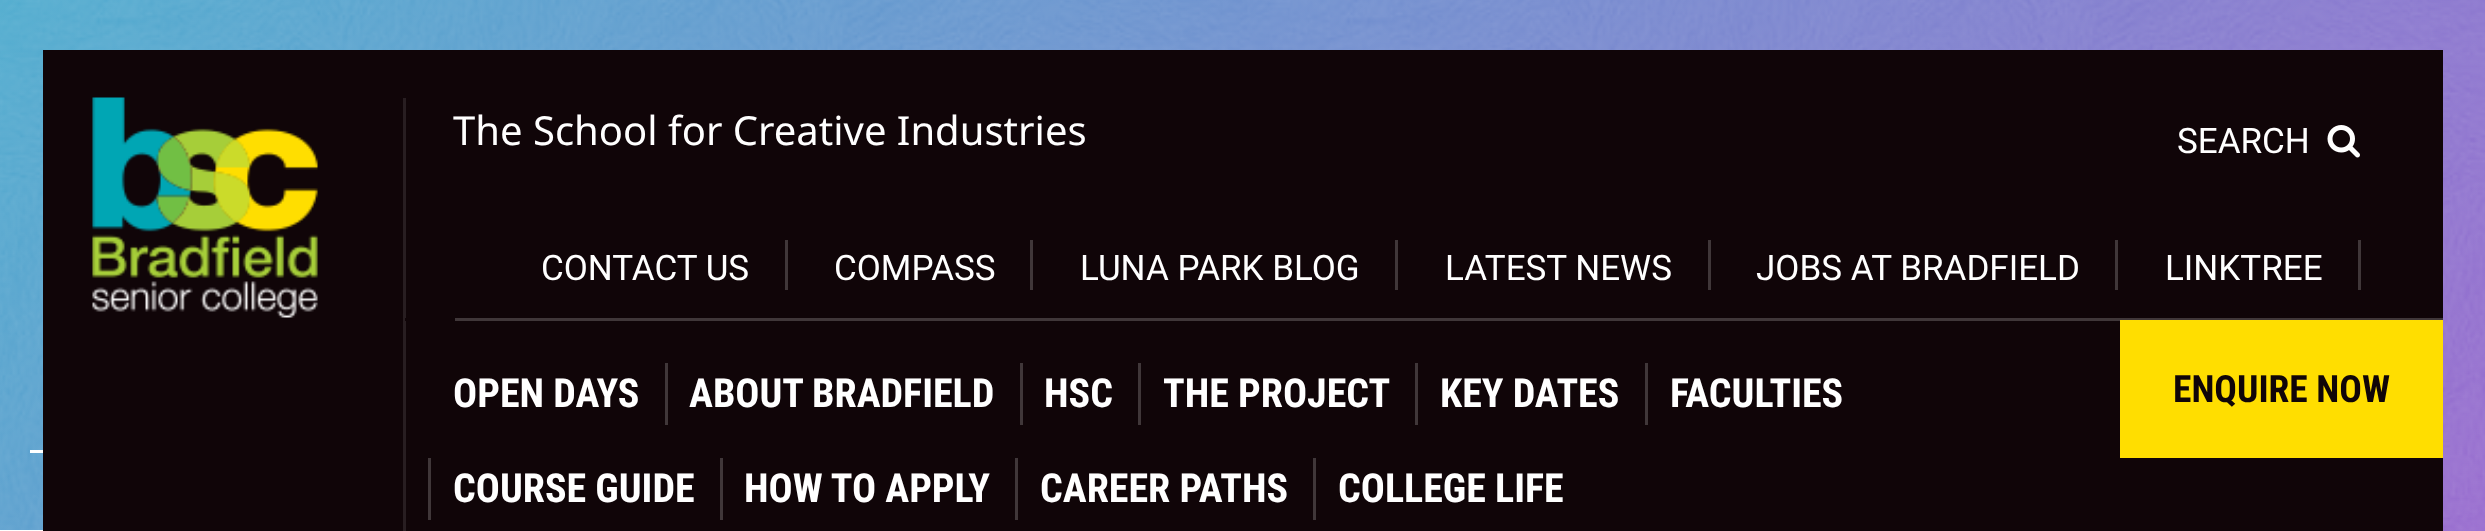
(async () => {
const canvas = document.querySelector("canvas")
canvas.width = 2485
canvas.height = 531
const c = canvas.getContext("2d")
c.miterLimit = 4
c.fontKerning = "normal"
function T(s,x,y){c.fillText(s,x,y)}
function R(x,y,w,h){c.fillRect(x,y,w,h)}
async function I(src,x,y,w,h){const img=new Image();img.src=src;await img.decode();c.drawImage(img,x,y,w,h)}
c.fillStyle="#fff"
R(0,0,2485,531)
await I("1.png",0,0,2485,531)
R(30,450,13,3)
R(0,530,43,1)
c.fillStyle="#100508"
R(43,50,2400,481)
await I("2.png",92,97,226,221)
c.fillStyle="#281e21"
R(403,98,3,433)
c.font="40px Noto Sans"
c.fillStyle="#fff"
T("The School for Creative Industries",453,145)
c.font="35px Roboto"
T("SEARCH",2177,153)
await I("3.png",2327,125,33,33)
T("CONTACT US",541,280)
c.fillStyle="#403739"
R(785,240,3,50)
c.fillStyle="#fff"
T("COMPASS",834,280)
c.fillStyle="#403739"
R(1030,240,3,50)
c.fillStyle="#fff"
T("LUNA PARK BLOG",1080,280)
c.fillStyle="#403739"
R(1395,240,3,50)
c.fillStyle="#fff"
T("LATEST NEWS",1445,280)
c.fillStyle="#403739"
R(1708,240,3,50)
c.fillStyle="#fff"
T("JOBS AT BRADFIELD",1756,280)
c.fillStyle="#403739"
R(2115,240,3,50)
c.fillStyle="#fff"
T("LINKTREE",2165,280)
c.fillStyle="#403739"
R(2358,240,3,50)
R(455,318,1988,3)
c.fillStyle="#100508"
R(405,318,1,3)
c.font="bold 40px Roboto Condensed"
c.fillStyle="#fff"
T("OPEN DAYS",453,407)
c.fillStyle="#403739"
R(665,363,3,62)
c.fillStyle="#fff"
T("ABOUT BRADFIELD",689,407)
c.fillStyle="#403739"
R(1020,363,3,62)
c.fillStyle="#fff"
T("HSC",1044,407)
c.fillStyle="#403739"
R(1138,363,3,62)
c.fillStyle="#fff"
T("THE PROJECT",1163,407)
c.fillStyle="#403739"
R(1415,363,3,62)
c.fillStyle="#fff"
T("KEY DATES",1440,407)
c.fillStyle="#403739"
R(1645,363,3,62)
c.fillStyle="#fff"
T("FACULTIES",1670,407)
c.fillStyle="#403739"
R(428,458,3,62)
c.fillStyle="#fff"
T("COURSE GUIDE",453,502)
c.fillStyle="#403739"
R(720,458,3,62)
c.fillStyle="#fff"
T("HOW TO APPLY",744,502)
c.fillStyle="#403739"
R(1015,458,3,62)
c.fillStyle="#fff"
T("CAREER PATHS",1040,502)
c.fillStyle="#403739"
R(1313,458,3,62)
c.fillStyle="#fff"
T("COLLEGE LIFE",1338,502)
c.fillStyle="#ffde00"
R(2120,320,323,138)
c.font="bold 37.5px Roboto Condensed"
c.fillStyle="#100508"
T("ENQUIRE NOW",2173,402)
})()
